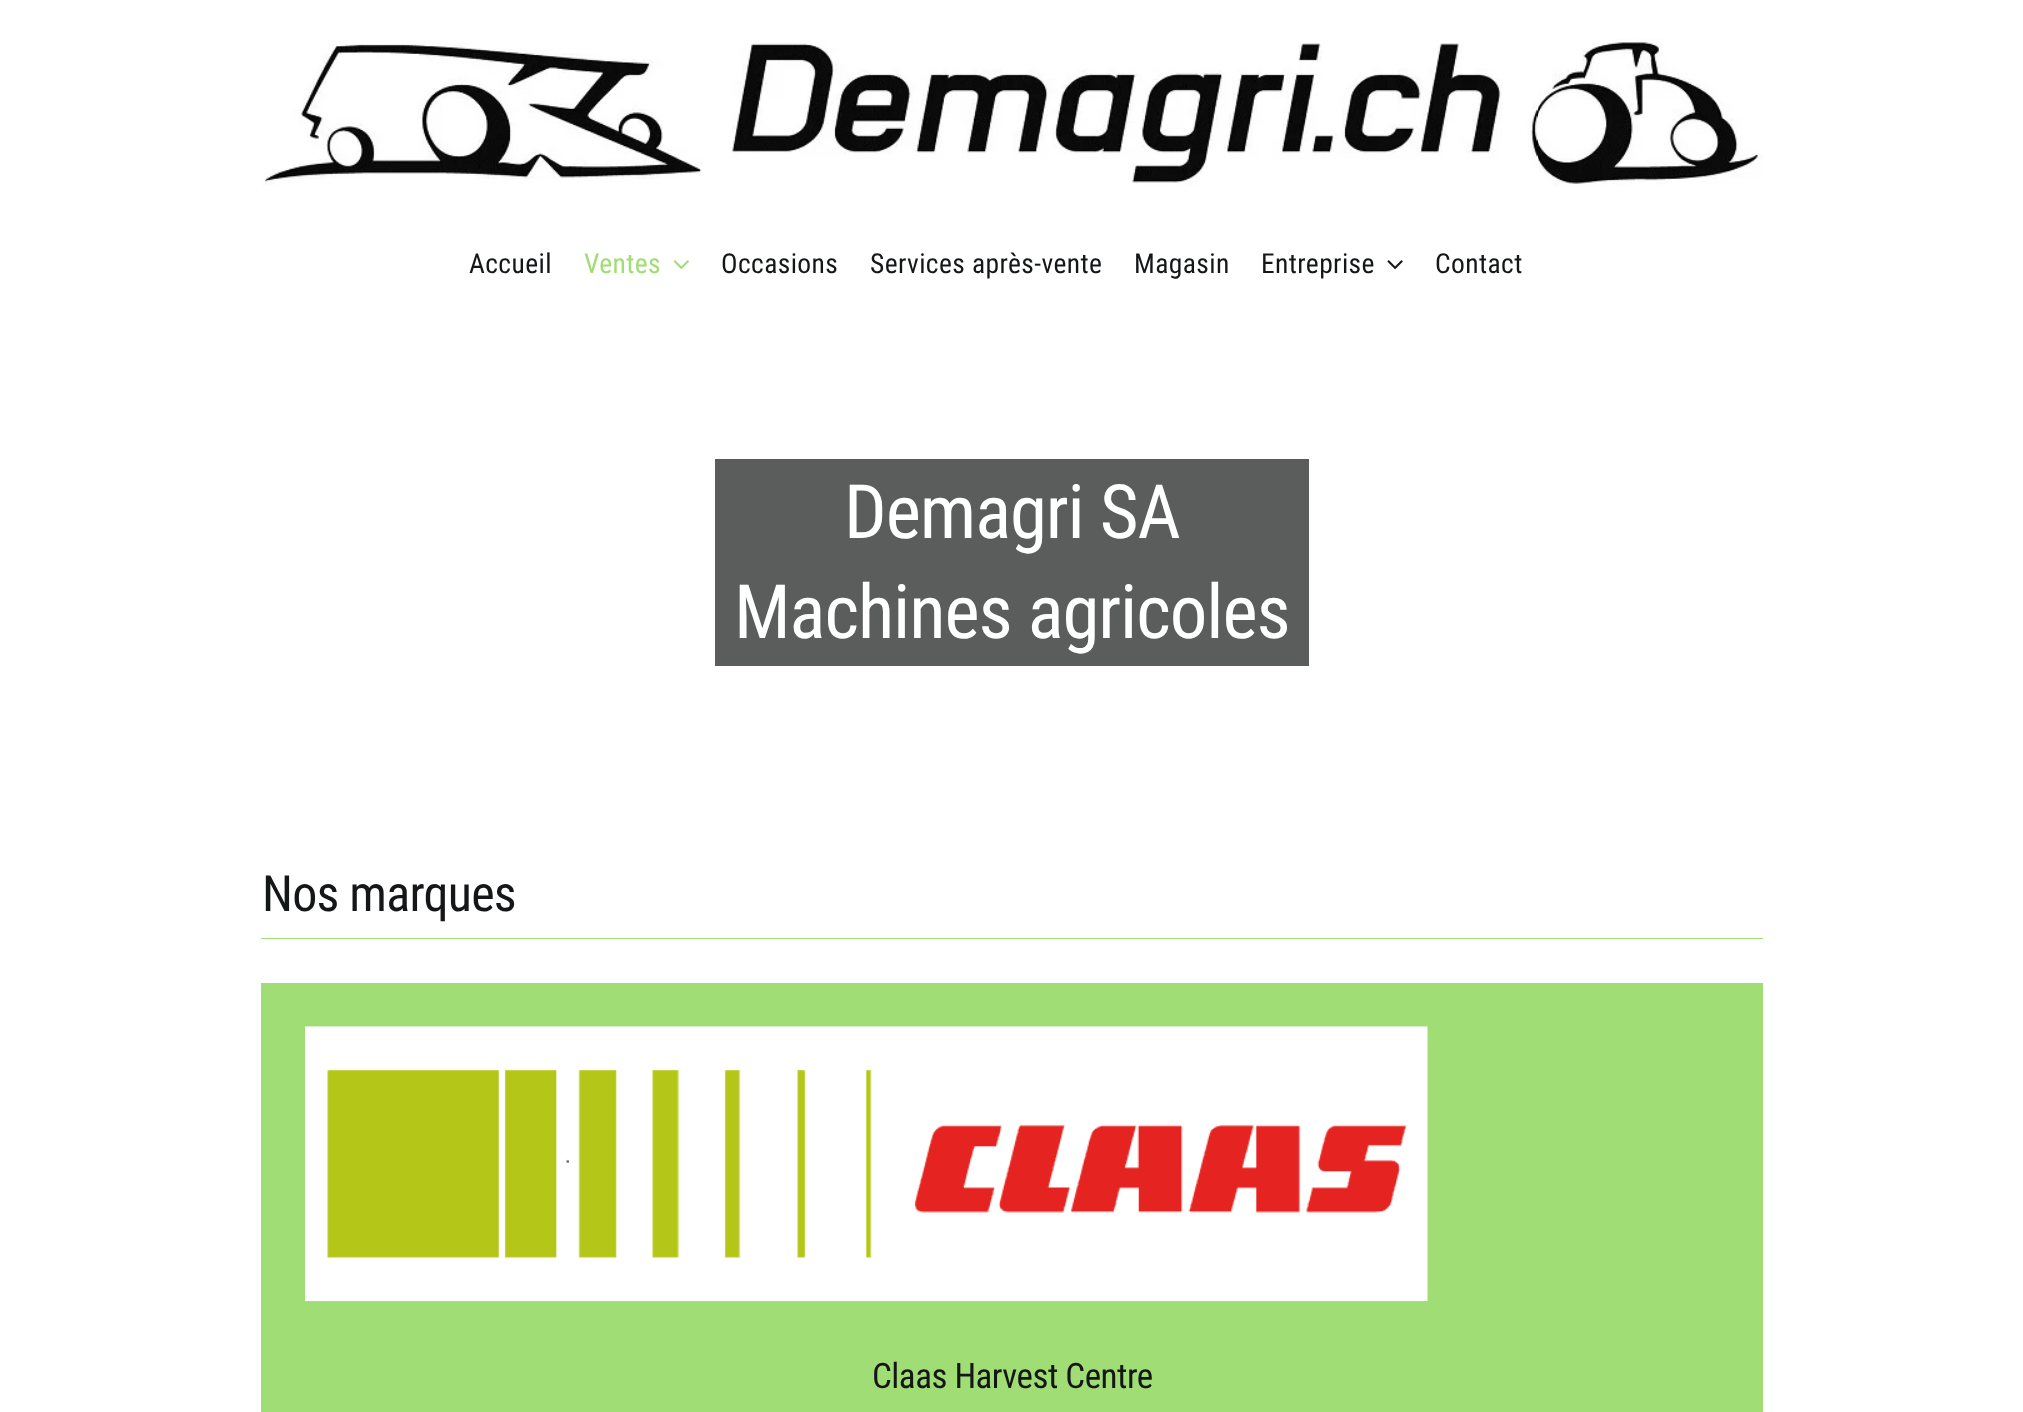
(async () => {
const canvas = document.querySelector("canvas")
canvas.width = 2023
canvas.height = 1412
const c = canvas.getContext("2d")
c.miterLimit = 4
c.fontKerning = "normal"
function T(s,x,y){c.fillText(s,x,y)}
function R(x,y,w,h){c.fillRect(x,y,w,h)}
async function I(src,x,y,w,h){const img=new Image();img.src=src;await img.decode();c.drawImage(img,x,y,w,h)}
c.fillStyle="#fff"
R(0,0,2023,1412)
await I("1.png",263,39,1500,147)
c.letterSpacing="0.4px"
c.font="27.5px Roboto Condensed"
c.fillStyle="#141617"
T("Accueil",469,273)
c.fillStyle="#a1dd75"
T("Ventes",584,273)
await I("2.png",673,260,16,10)
c.fillStyle="#141617"
T("Occasions",721,273)
T("Services après-vente",870,273)
T("Magasin",1134,273)
T("Entreprise",1261,273)
await I("3.png",1387,260,16,10)
T("Contact",1435,273)
c.fillStyle="#5b5d5d"
R(715,459,594,207)
c.letterSpacing="-1.1px"
c.font="75px Roboto Condensed"
c.fillStyle="#fff"
T("Demagri SA",844,538)
T("Machines agricoles",734,638)
c.fillStyle="#a1dd75"
R(261,938,1502,1)
c.letterSpacing="-0.75px"
c.font="50px Roboto Condensed"
c.fillStyle="#141617"
T("Nos marques",262,911)
c.fillStyle="#a1dd75"
R(261,983,1502,429)
await I("4.png",305,1026,1123,276)
c.letterSpacing="-0.5px"
c.font="35px Roboto Condensed"
c.fillStyle="#141617"
T("Claas Harvest Centre",872,1388)
})()
